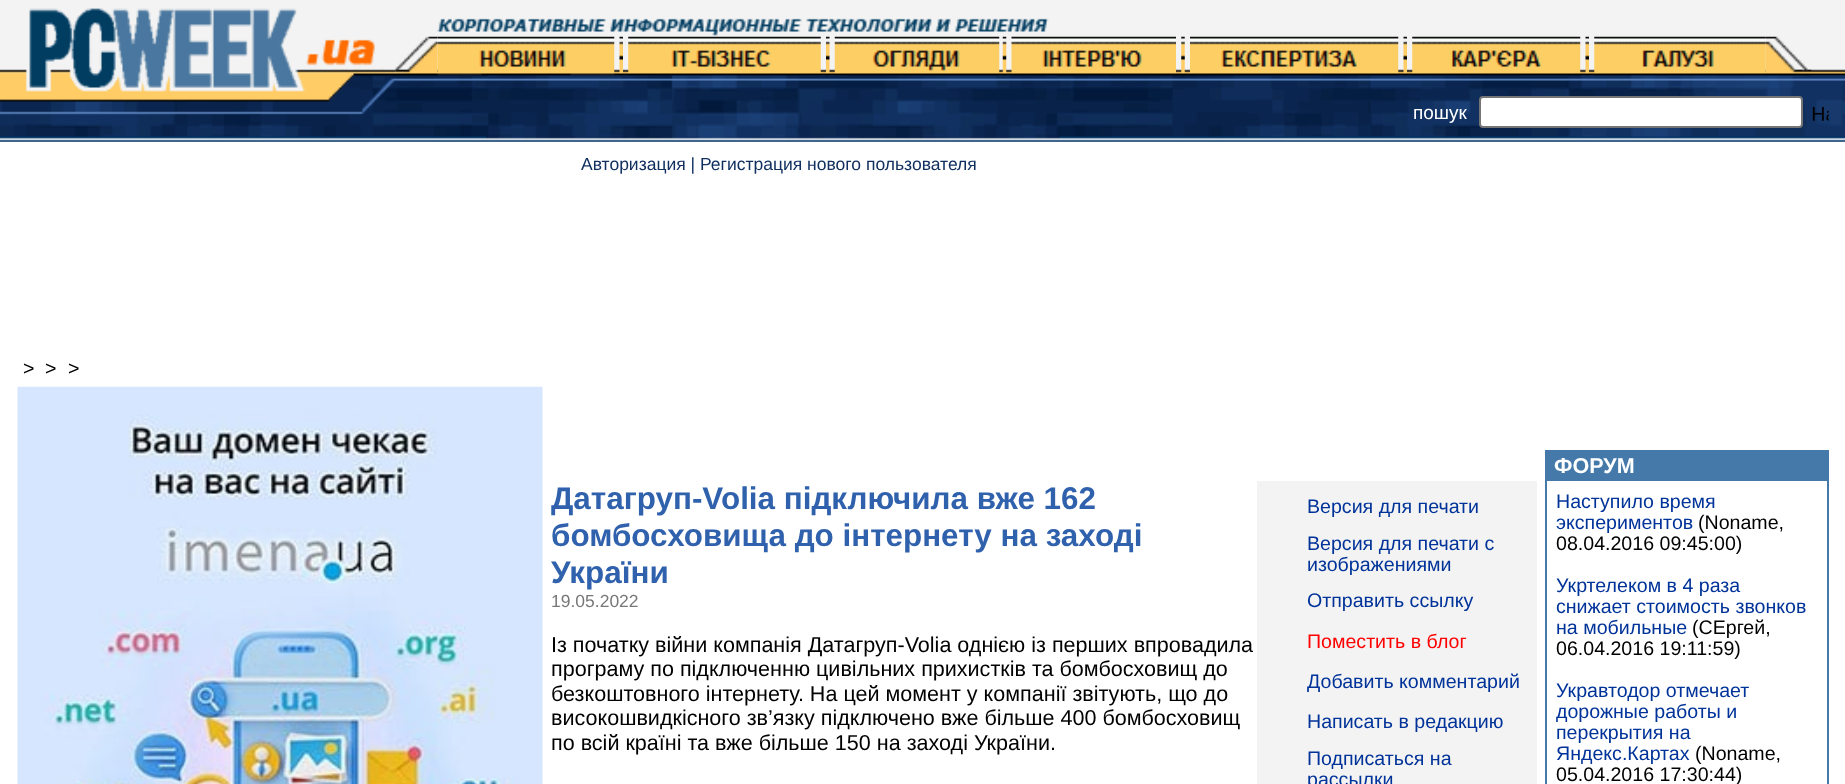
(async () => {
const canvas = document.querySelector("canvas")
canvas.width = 1845
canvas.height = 784
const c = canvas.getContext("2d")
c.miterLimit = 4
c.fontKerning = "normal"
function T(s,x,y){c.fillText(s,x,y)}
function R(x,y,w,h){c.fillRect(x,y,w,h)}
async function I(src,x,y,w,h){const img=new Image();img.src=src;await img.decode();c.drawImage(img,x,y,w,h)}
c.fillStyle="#fff"
R(0,0,1845,784)
await I("1.png",0,0,1845,142)
await I("4.png",395,69,1450,7)
await I("2.png",0,8,396,94)
await I("3.png",437,18,612,18)
await I("5.png",395,36,43,40)
await I("6.png",437,36,178,40)
await I("7.png",619,36,4,40)
await I("8.png",628,36,193,40)
await I("9.png",826,36,4,40)
await I("10.png",834,36,166,40)
await I("11.png",1002,36,5,40)
await I("12.png",1011,36,165,40)
await I("13.png",1181,36,4,40)
await I("14.png",1190,36,209,40)
await I("15.png",1403,36,4,40)
await I("16.png",1412,36,169,40)
await I("17.png",1585,36,4,40)
await I("18.png",1594,36,172,40)
await I("19.png",1765,36,43,40)
await I("20.png",1807,69,5,7)
c.font="19px Liberation Sans"
T("пошук",1413,119)
c.beginPath()
c.roundRect(1480,97,322,30,3)
c.fill()
c.strokeStyle="#767676"
c.lineWidth=2
c.stroke()
await I("21.png",1812,107,17,14)
c.font="17.5px Liberation Sans"
c.fillStyle="#113060"
T("Авторизация | Регистрация нового пользователя",581,170)
c.font="19.6px Liberation Sans"
c.fillStyle="#000"
T(">",23,375)
T(">",45,375)
T(">",68,375)
await I("22.png",17,386,526,398)
c.font="bold 31.4px Liberation Sans"
c.fillStyle="#3061ad"
T("Датагруп-Volia підключила вже 162",551,509)
T("бомбосховища до інтернету на заході",551,546)
T("України",551,583)
c.fillStyle="#f3f3f3"
R(1257,481,280,303)
c.font="19.6px Liberation Sans"
c.fillStyle="#039"
T("Версия для печати",1307,513)
T("Версия для печати с",1307,550)
T("изображениями",1307,571)
T("Отправить ссылку",1307,607)
c.fillStyle="#f00"
T("Поместить в блог",1307,648)
c.fillStyle="#039"
T("Добавить комментарий",1307,688)
T("Написать в редакцию",1307,728)
T("Подписаться на",1307,765)
T("рассылки",1307,786)
c.font="17.5px Liberation Sans"
c.fillStyle="#777"
T("19.05.2022",551,607)
c.font="21.55px Liberation Sans"
c.fillStyle="#000"
T("Із початку війни компанія Датагруп-Volia однією із перших впровадила",551,652)
T("програму по підключенню цивільних прихистків та бомбосховищ до",551,676)
T("безкоштовного інтернету. На цей момент у компанії звітують, що до",551,701)
T("високошвидкісного зв’язку підключено вже більше 400 бомбосховищ",551,725)
T("по всій країні та вже більше 150 на заході України.",551,750)
c.fillStyle="#4579a9"
R(1545,450,284,31)
c.font="bold 21.55px Liberation Sans"
c.fillStyle="#fff"
T("ФОРУМ",1554,473)
c.fillStyle="#4579a9"
R(1827,481,2,303)
R(1545,481,2,303)
c.font="19.6px Liberation Sans"
c.fillStyle="#039"
T("Наступило время",1556,508)
T("экспериментов",1556,529)
c.fillStyle="#000"
T("(Noname,",1698,529)
T("08.04.2016 09:45:00)",1556,550)
c.fillStyle="#039"
T("Укртелеком в 4 раза",1556,592)
T("снижает стоимость звонков",1556,613)
T("на мобильные",1556,634)
c.fillStyle="#000"
T("(СЕргей,",1692,634)
T("06.04.2016 19:11:59)",1556,655)
c.fillStyle="#039"
T("Укравтодор отмечает",1556,697)
T("дорожные работы и",1556,718)
T("перекрытия на",1556,739)
T("Яндекс.Картах",1556,760)
c.fillStyle="#000"
T("(Noname,",1695,760)
T("05.04.2016 17:30:44)",1556,781)
})()
